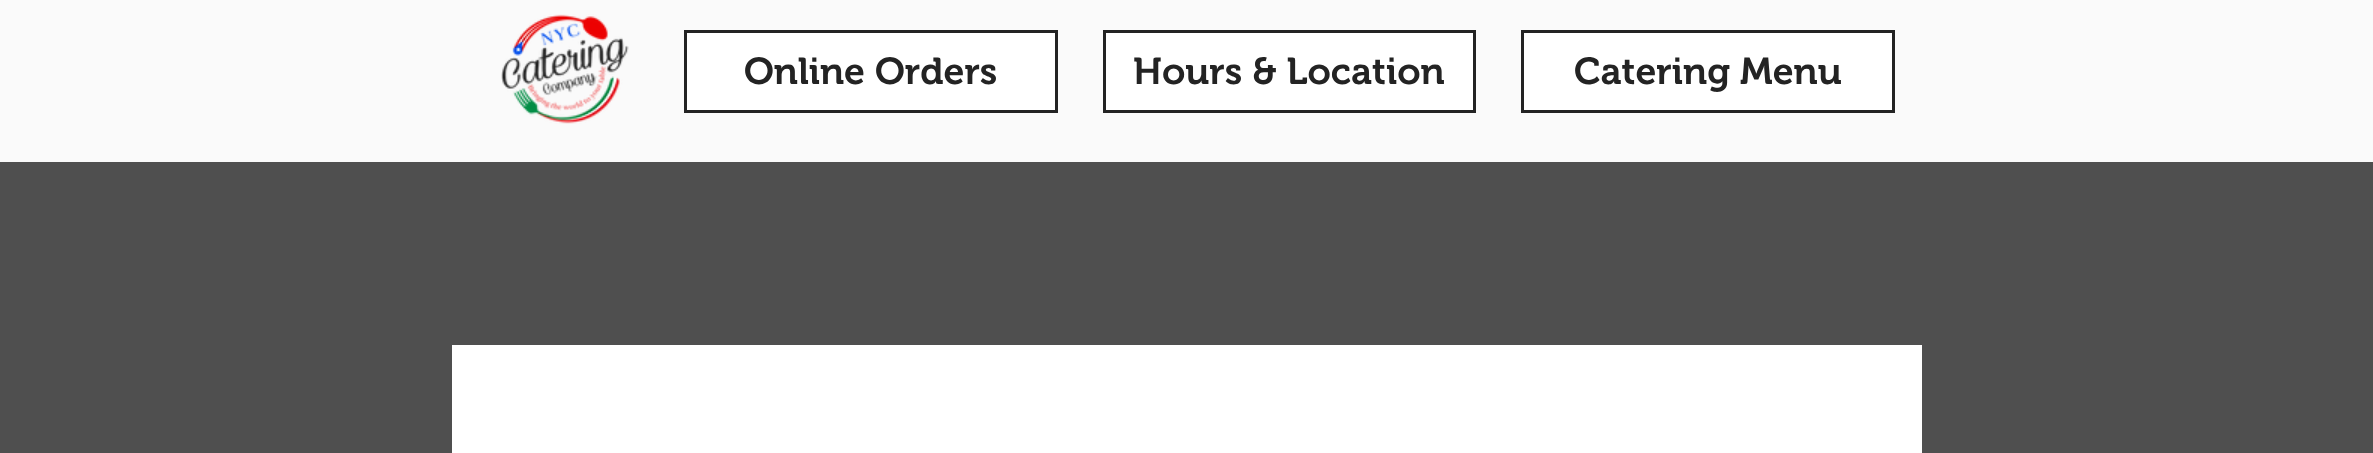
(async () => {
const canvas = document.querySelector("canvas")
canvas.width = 2373
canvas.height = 453
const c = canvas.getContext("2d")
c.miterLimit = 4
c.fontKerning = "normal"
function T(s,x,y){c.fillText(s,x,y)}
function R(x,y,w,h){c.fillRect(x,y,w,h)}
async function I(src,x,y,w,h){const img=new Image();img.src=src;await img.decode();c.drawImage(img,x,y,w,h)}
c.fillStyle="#4f4f4f"
R(0,0,2373,453)
c.fillStyle="#fafafa"
R(0,0,2373,162)
await I("1.png",501,14,128,110)
c.fillStyle="#fff"
c.beginPath()
c.rect(685.5,31.5,371,80)
c.fill()
c.strokeStyle="#232323"
c.lineWidth=3
c.stroke()
c.font="600 37.5px 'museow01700'"
c.fillStyle="#232323"
T("Online Orders",744,84)
c.fillStyle="#fff"
c.beginPath()
c.rect(1104.5,31.5,370,80)
c.fill()
c.stroke()
c.fillStyle="#232323"
T("Hours & Location",1133,84)
c.fillStyle="#fff"
c.beginPath()
c.rect(1522.5,31.5,371,80)
c.fill()
c.stroke()
c.fillStyle="#232323"
T("Catering Menu",1574,84)
c.fillStyle="#fff"
R(452,345,1470,108)
})()
